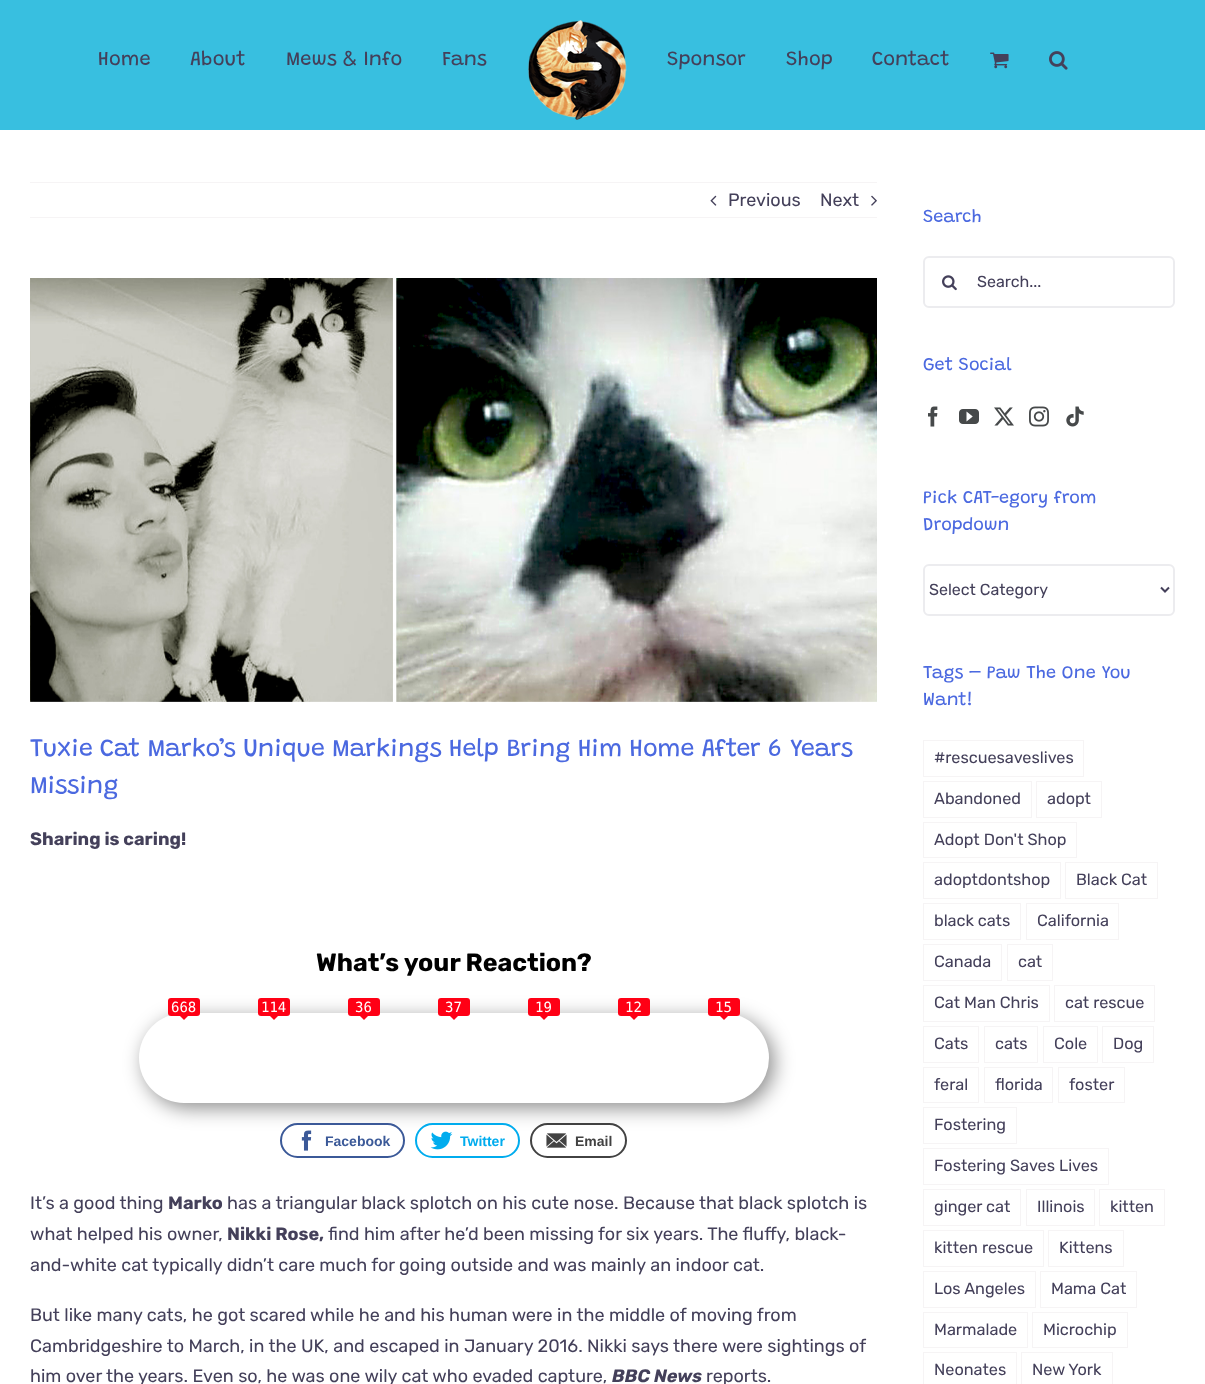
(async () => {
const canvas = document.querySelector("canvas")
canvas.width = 1205
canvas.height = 1384
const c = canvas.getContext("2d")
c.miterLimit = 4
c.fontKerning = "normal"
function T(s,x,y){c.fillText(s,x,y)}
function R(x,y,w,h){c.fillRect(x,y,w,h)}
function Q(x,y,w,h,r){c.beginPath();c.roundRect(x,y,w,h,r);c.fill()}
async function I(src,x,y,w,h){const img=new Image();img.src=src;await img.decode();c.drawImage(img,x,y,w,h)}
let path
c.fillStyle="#fff"
R(0,0,1205,1384)
c.fillStyle="#38bfe0"
R(0,0,1205,130)
c.font="20px Grandstander"
c.fillStyle="#44405a"
T("Home",98,65)
T("About",190,65)
T("Mews & Info",286,65)
T("Fans",442,65)
await I("1.png",528,20,99,100)
T("Sponsor",667,65)
T("Shop",786,65)
T("Contact",872,65)
await I("2.png",990,52,19,17)
await I("3.png",1049,51,19,19)
c.fillStyle="#f6f4f5"
R(30,182,847,1)
R(30,217,847,1)
await I("4.png",710,195,7,11)
c.font="18px Rubik"
c.fillStyle="#44405a"
T("Previous",728,206)
T("Next",820,206)
await I("5.png",871,195,6,11)
await I("6.png",30,278,847,424)
c.letterSpacing="-0.25px"
c.font="25px Grandstander"
c.fillStyle="#4b69e0"
T("Tuxie Cat Marko’s Unique Markings Help Bring Him Home After 6 Years",30,756)
T("Missing",30,793)
c.letterSpacing="0px"
c.font="bold 18px Rubik"
c.fillStyle="#44405a"
T("Sharing is caring!",30,845)
c.font="bold 25px Rubik"
c.fillStyle="#000"
T("What’s your Reaction?",316,971)
c.fillStyle="#00000073"
c.filter="blur(10px)"
c.beginPath()
c.roundRect(144,1018,630,90,45)
c.fill()
c.filter="none"
c.fillStyle="#fff"
Q(139,1013,630,90,45)
c.fillStyle="#ff0015"
Q(168,998,32,18,3)
c.font="14px DejaVu Sans Mono"
c.fillStyle="#fff"
T("668",171,1012)
c.fillStyle="#ff0015"
path = new Path2D("M179 1015h10l-5 5z")
c.fill(path)
Q(258,998,32,18,3)
c.fillStyle="#fff"
T("114",261,1012)
c.fillStyle="#ff0015"
path = new Path2D("M269 1015h10l-5 5z")
c.fill(path)
Q(348,998,32,18,3)
c.fillStyle="#fff"
T("36",355,1012)
c.fillStyle="#ff0015"
path = new Path2D("M359 1015h10l-5 5z")
c.fill(path)
Q(438,998,32,18,3)
c.fillStyle="#fff"
T("37",445,1012)
c.fillStyle="#ff0015"
path = new Path2D("M449 1015h10l-5 5z")
c.fill(path)
Q(528,998,32,18,3)
c.fillStyle="#fff"
T("19",535,1012)
c.fillStyle="#ff0015"
path = new Path2D("M539 1015h10l-5 5z")
c.fill(path)
Q(618,998,32,18,3)
c.fillStyle="#fff"
T("12",625,1012)
c.fillStyle="#ff0015"
path = new Path2D("M629 1015h10l-5 5z")
c.fill(path)
Q(708,998,32,18,3)
c.fillStyle="#fff"
T("15",715,1012)
c.fillStyle="#ff0015"
path = new Path2D("M719 1015h10l-5 5z")
c.fill(path)
c.fillStyle="#fff"
c.beginPath()
c.roundRect(281,1124,123,33,16.5)
c.fill()
c.strokeStyle="#3b5998"
c.lineWidth=2
c.stroke()
await I("7.png",301,1130,11,21)
c.font="bold 14px Liberation Sans"
c.fillStyle="#3b5998"
T("Facebook",325,1146)
c.fillStyle="#fff"
c.beginPath()
c.roundRect(416,1124,103,33,16.5)
c.fill()
c.strokeStyle="#00acee"
c.stroke()
await I("8.png",430,1131,23,19)
c.fillStyle="#00acee"
T("Twitter",460,1146)
c.fillStyle="#fff"
c.beginPath()
c.roundRect(531,1124,95,33,16.5)
c.fill()
c.strokeStyle="#424242"
c.stroke()
await I("9.png",546,1133,21,15)
c.fillStyle="#424242"
T("Email",575,1146)
c.font="18px Rubik"
c.fillStyle="#44405a"
T("It’s a good thing",30,1209)
c.font="bold 18px Rubik"
T("Marko",168,1209)
c.font="18px Rubik"
T("has a triangular black splotch on his cute nose. Because that black splotch is",227,1209)
T("what helped his owner,",30,1240)
c.font="bold 18px Rubik"
T("Nikki Rose,",227,1240)
c.font="18px Rubik"
T("find him after he’d been missing for six years. The fluffy, black-",328,1240)
T("and-white cat typically didn’t care much for going outside and was mainly an indoor cat.",30,1271)
T("But like many cats, he got scared while he and his human were in the middle of moving from",30,1321)
T("Cambridgeshire to March, in the UK, and escaped in January 2016. Nikki says there were sightings of",30,1352)
T("him over the years. Even so, he was one wily cat who evaded capture,",30,1382)
c.font="italic bold 18px Rubik"
T("BBC News",612,1382)
c.font="18px Rubik"
T("reports.",706,1382)
c.font="18px Grandstander"
c.fillStyle="#4b69e0"
T("Search",923,222)
c.beginPath()
c.roundRect(924,257,250,50,5)
c.strokeStyle="#ececef"
c.stroke()
await I("10.png",942,275,15,16)
c.font="16px Rubik"
c.fillStyle="#44405a"
T("Search...",977,287)
c.font="18px Grandstander"
c.fillStyle="#4b69e0"
T("Get Social",923,370)
await I("11.png",928,406,10,21)
await I("12.png",959,409,20,15)
await I("13.png",994,407,20,19)
await I("14.png",1029,406,20,21)
await I("15.png",1066,406,18,21)
T("Pick CAT-egory from",923,503)
T("Dropdown",923,530)
c.beginPath()
c.roundRect(924,565,250,50,5)
c.stroke()
path = new Path2D("M1161 587.5l4 4l4-4")
c.strokeStyle="#44405a"
c.stroke(path)
c.font="16px Rubik"
c.fillStyle="#44405a"
T("Select Category",929,595)
c.font="18px Grandstander"
c.fillStyle="#4b69e0"
T("Tags – Paw The One You",923,678)
T("Want!",923,705)
c.strokeStyle="#f6f4f5"
c.lineWidth=1
c.strokeRect(923.5,740.5,160,36)
c.font="16.25px Rubik"
c.fillStyle="#44405a"
T("#rescuesaveslives",934,763)
c.strokeRect(923.5,781.5,108,36)
T("Abandoned",934,804)
c.strokeRect(1036.5,781.5,65,36)
T("adopt",1047,804)
c.strokeRect(923.5,822.5,153,35)
T("Adopt Don't Shop",934,845)
c.strokeRect(923.5,862.5,137,36)
T("adoptdontshop",934,885)
c.strokeRect(1065.5,862.5,92,36)
T("Black Cat",1076,885)
c.strokeRect(923.5,903.5,97,36)
T("black cats",934,926)
c.strokeRect(1026.5,903.5,92,36)
T("California",1037,926)
c.strokeRect(923.5,944.5,78,36)
T("Canada",934,967)
c.strokeRect(1007.5,944.5,45,36)
T("cat",1018,967)
c.strokeRect(923.5,985.5,126,36)
T("Cat Man Chris",934,1008)
c.strokeRect(1054.5,985.5,100,36)
T("cat rescue",1065,1008)
c.strokeRect(923.5,1026.5,55,36)
T("Cats",934,1049)
c.strokeRect(984.5,1026.5,53,36)
T("cats",995,1049)
c.strokeRect(1043.5,1026.5,54,36)
T("Cole",1054,1049)
c.strokeRect(1102.5,1026.5,51,36)
T("Dog",1113,1049)
c.strokeRect(923.5,1067.5,55,35)
T("feral",934,1090)
c.strokeRect(984.5,1067.5,68,35)
T("florida",995,1090)
c.strokeRect(1058.5,1067.5,66,35)
T("foster",1069,1090)
c.strokeRect(923.5,1107.5,93,36)
T("Fostering",934,1130)
c.strokeRect(923.5,1148.5,185,36)
T("Fostering Saves Lives",934,1171)
c.strokeRect(923.5,1189.5,97,36)
T("ginger cat",934,1212)
c.strokeRect(1026.5,1189.5,68,36)
T("Illinois",1037,1212)
c.strokeRect(1099.5,1189.5,65,36)
T("kitten",1110,1212)
c.strokeRect(923.5,1230.5,120,36)
T("kitten rescue",934,1253)
c.strokeRect(1048.5,1230.5,75,36)
T("Kittens",1059,1253)
c.strokeRect(923.5,1271.5,112,36)
T("Los Angeles",934,1294)
c.strokeRect(1040.5,1271.5,96,36)
T("Mama Cat",1051,1294)
c.strokeRect(923.5,1312.5,104,35)
T("Marmalade",934,1335)
c.strokeRect(1032.5,1312.5,95,35)
T("Microchip",1043,1335)
c.strokeRect(923.5,1352.5,93,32)
T("Neonates",934,1375)
c.strokeRect(1021.5,1352.5,91,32)
T("New York",1032,1375)
})()
